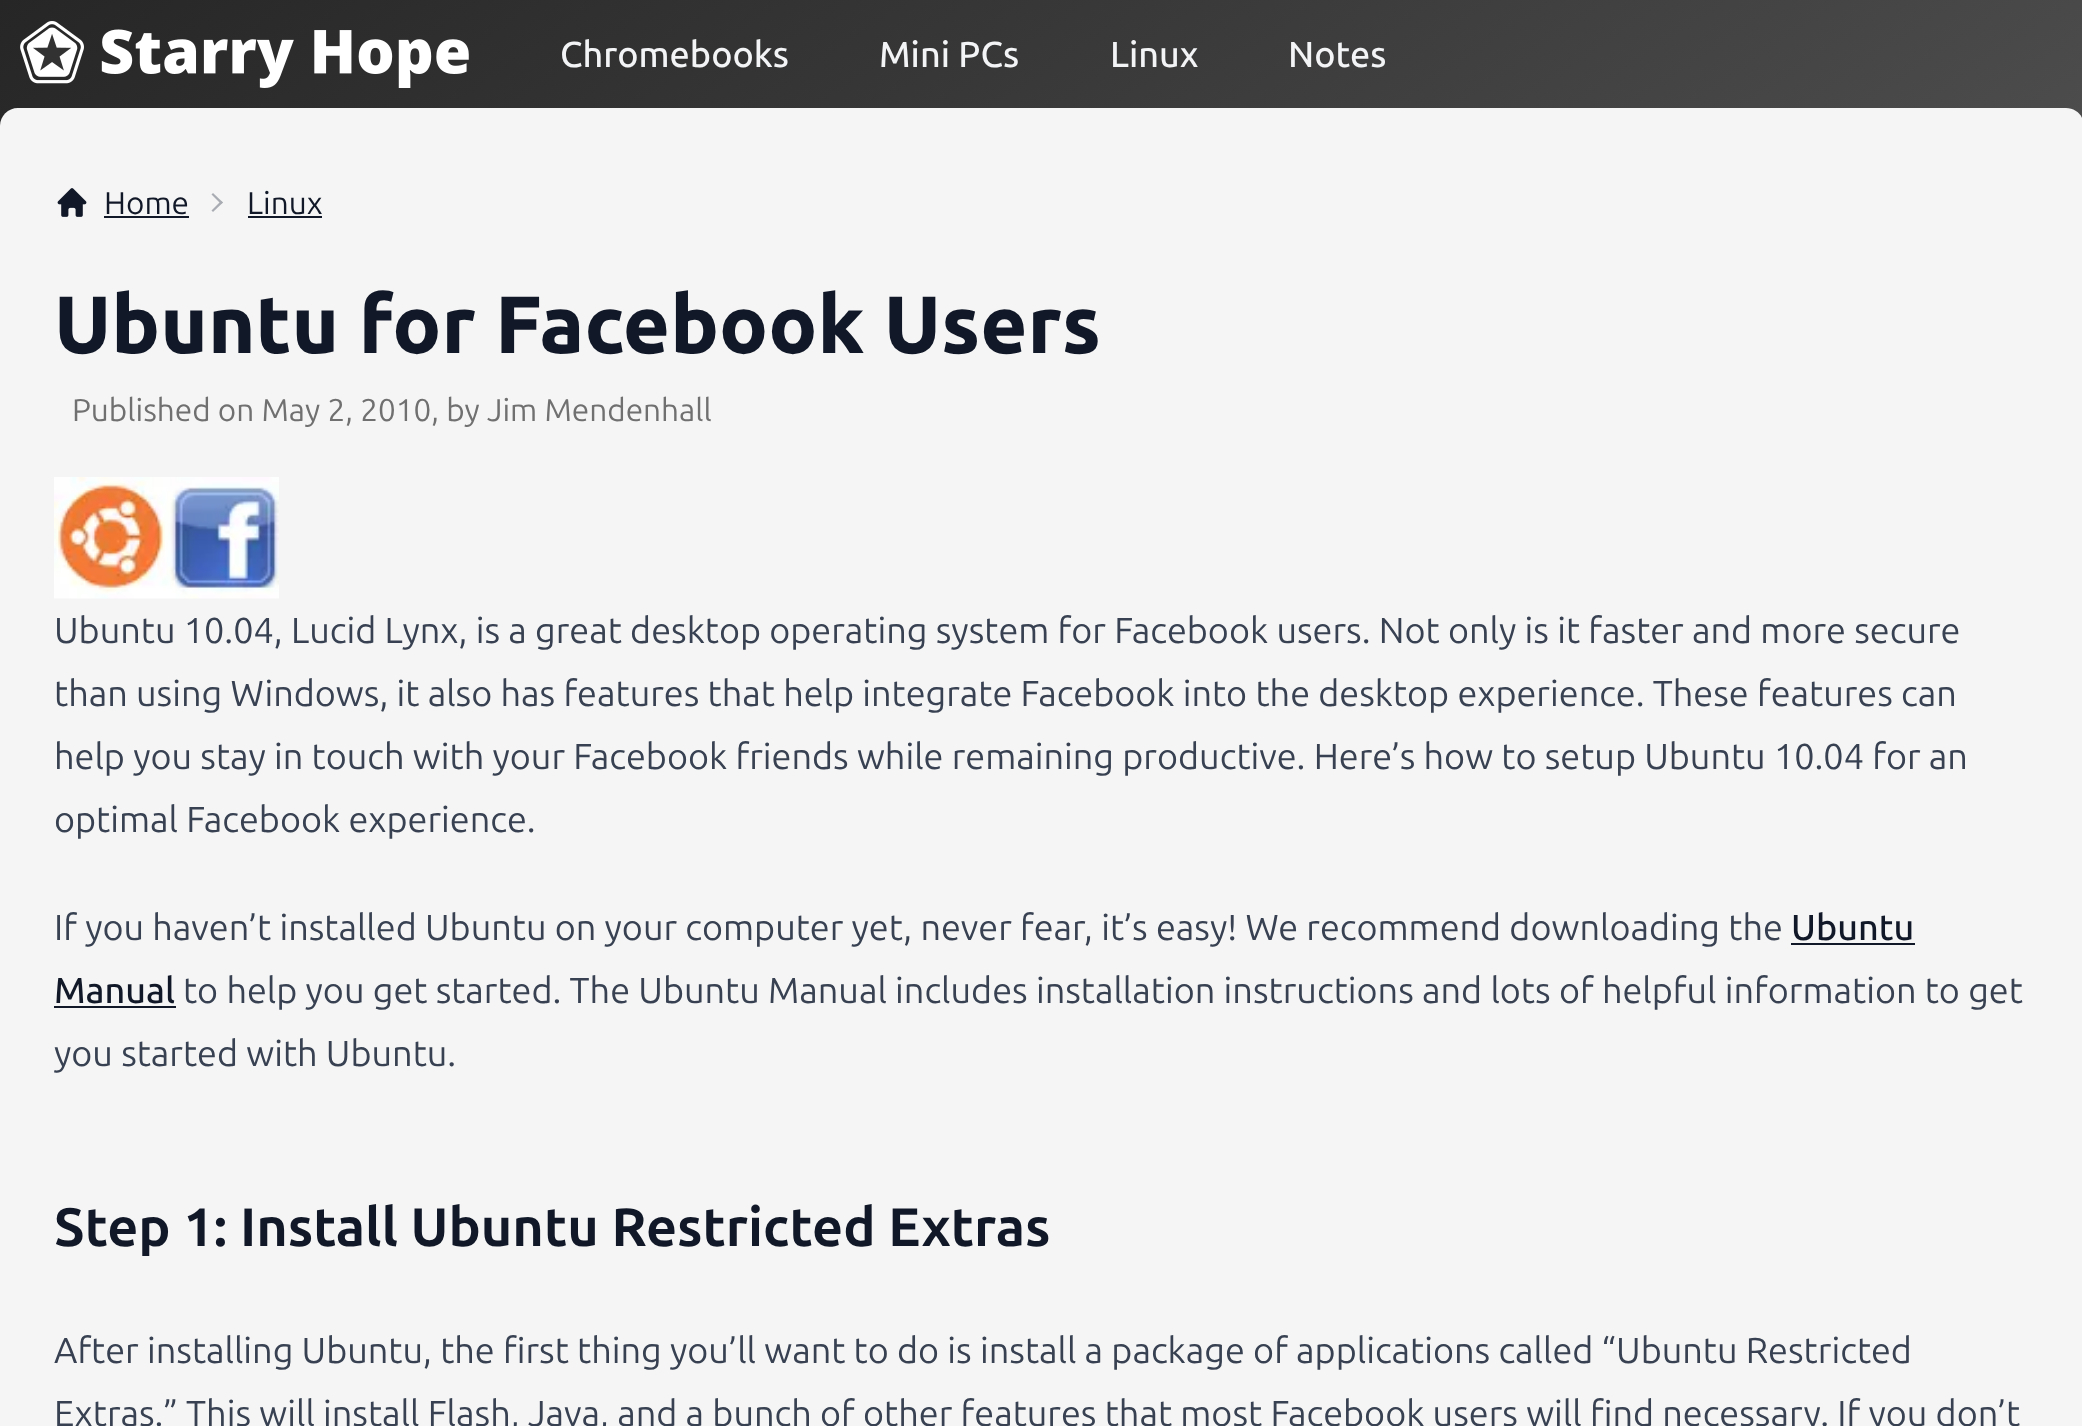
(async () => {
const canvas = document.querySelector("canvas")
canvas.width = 2082
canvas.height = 1426
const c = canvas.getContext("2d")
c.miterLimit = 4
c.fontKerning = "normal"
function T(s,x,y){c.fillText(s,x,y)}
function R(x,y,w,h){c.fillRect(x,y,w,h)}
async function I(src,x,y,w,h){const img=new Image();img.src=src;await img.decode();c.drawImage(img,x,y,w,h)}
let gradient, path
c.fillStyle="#fff"
R(0,0,2082,1426)
gradient = c.createLinearGradient(1707,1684,377,-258)
gradient.addColorStop(0,"#707070")
gradient.addColorStop(.25,"#5c5c5c")
gradient.addColorStop(.5,"#494949")
gradient.addColorStop(.75,"#373737")
gradient.addColorStop(1,"#262626")
c.fillStyle = gradient
R(0,0,2082,126)
await I("1.png",20,21,449,67)
c.font="500 36px Ubuntu"
c.fillStyle="#f3f4f6"
T("Chromebooks",560,67)
T("Mini PCs",879,67)
T("Linux",1110,67)
T("Notes",1288,67)
c.fillStyle="#f5f5f5"
path = new Path2D("M18 108h2048c10 0 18 8 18 18v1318h-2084v-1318c0-10 8-18 18-18z")
c.fill(path)
await I("2.png",57,188,30,29)
c.font="31.5px Ubuntu"
c.fillStyle="#111827"
T("Home",104,214)
R(104,216,85,2)
c.fillStyle="#a9adb3"
path = new Path2D("M213 193l10 9.5l-2 1.5l-9.5-9.5z")
c.fill(path)
path = new Path2D("M221 201l2 1.5l-10 9.5l-1.5-1.5z")
c.fill(path)
c.fillStyle="#111827"
T("Linux",247,214)
R(248,216,74,2)
c.font="800 81px Ubuntu"
T("Ubuntu for Facebook Users",54,353)
c.font="31.5px Ubuntu"
c.fillStyle="#707070"
T("Published on May 2, 2010, by Jim Mendenhall",72,421)
await I("3.png",54,477,225,122)
c.font="36px Ubuntu"
c.fillStyle="#374151"
T("Ubuntu 10.04, Lucid Lynx, is a great desktop operating system for Facebook users. Not only is it faster and more secure",54,643)
T("than using Windows, it also has features that help integrate Facebook into the desktop experience. These features can",54,706)
T("help you stay in touch with your Facebook friends while remaining productive. Here’s how to setup Ubuntu 10.04 for an",54,769)
T("optimal Facebook experience.",54,832)
T("If you haven’t installed Ubuntu on your computer yet, never fear, it’s easy! We recommend downloading the",54,940)
c.font="500 36px Ubuntu"
c.fillStyle="#111827"
T("Ubuntu",1791,940)
R(1791,943,124,2)
T("Manual",54,1003)
R(54,1006,122,2)
c.font="36px Ubuntu"
c.fillStyle="#374151"
T("to help you get started. The Ubuntu Manual includes installation instructions and lots of helpful information to get",183,1003)
T("you started with Ubuntu.",54,1066)
c.font="bold 54px Ubuntu"
c.fillStyle="#111827"
T("Step 1: Install Ubuntu Restricted Extras",54,1246)
c.font="36px Ubuntu"
c.fillStyle="#374151"
T("After installing Ubuntu, the first thing you’ll want to do is install a package of applications called “Ubuntu Restricted",54,1363)
T("Extras.” This will install Flash, Java, and a bunch of other features that most Facebook users will find necessary. If you don’t",54,1426)
})()
